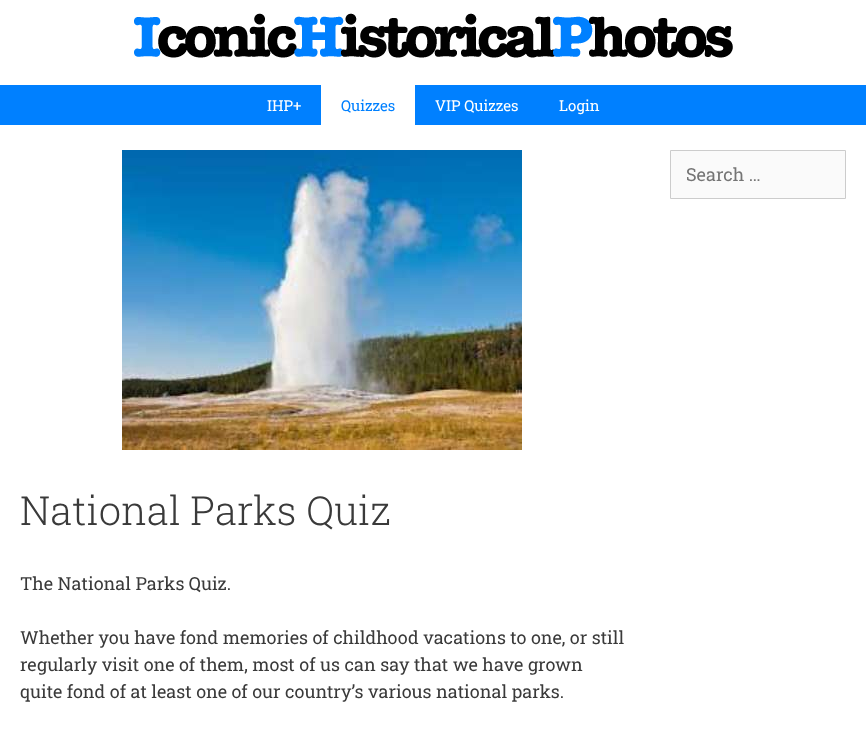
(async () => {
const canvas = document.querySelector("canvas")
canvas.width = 866
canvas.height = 729
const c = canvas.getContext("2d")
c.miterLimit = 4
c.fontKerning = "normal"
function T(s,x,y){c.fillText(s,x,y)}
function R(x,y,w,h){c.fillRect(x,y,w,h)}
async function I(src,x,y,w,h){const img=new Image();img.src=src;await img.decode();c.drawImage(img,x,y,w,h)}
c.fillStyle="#fff"
R(0,0,866,729)
await I("1.png",134,13,599,45)
c.fillStyle="#0080ff"
R(0,85,866,40)
c.font="15px Roboto Slab"
c.fillStyle="#fff"
T("IHP+",267,111)
R(321,85,94,40)
c.fillStyle="#0080ff"
T("Quizzes",341,111)
c.fillStyle="#fff"
T("VIP Quizzes",435,111)
T("Login",559,111)
c.fillStyle="#fafafa"
c.beginPath()
c.rect(670.5,150.5,175,48)
c.fill()
c.strokeStyle="#ccc"
c.stroke()
c.font="18px Roboto Slab"
c.fillStyle="#757575"
T("Search …",686,181)
await I("2.png",122,150,400,300)
c.font="300 40px Roboto Slab"
c.fillStyle="#3a3a3a"
T("National Parks Quiz",20,525)
c.font="18px Roboto Slab"
T("The National Parks Quiz.",20,590)
T("Whether you have fond memories of childhood vacations to one, or still",20,644)
T("regularly visit one of them, most of us can say that we have grown",20,671)
T("quite fond of at least one of our country’s various national parks.",20,698)
})()
